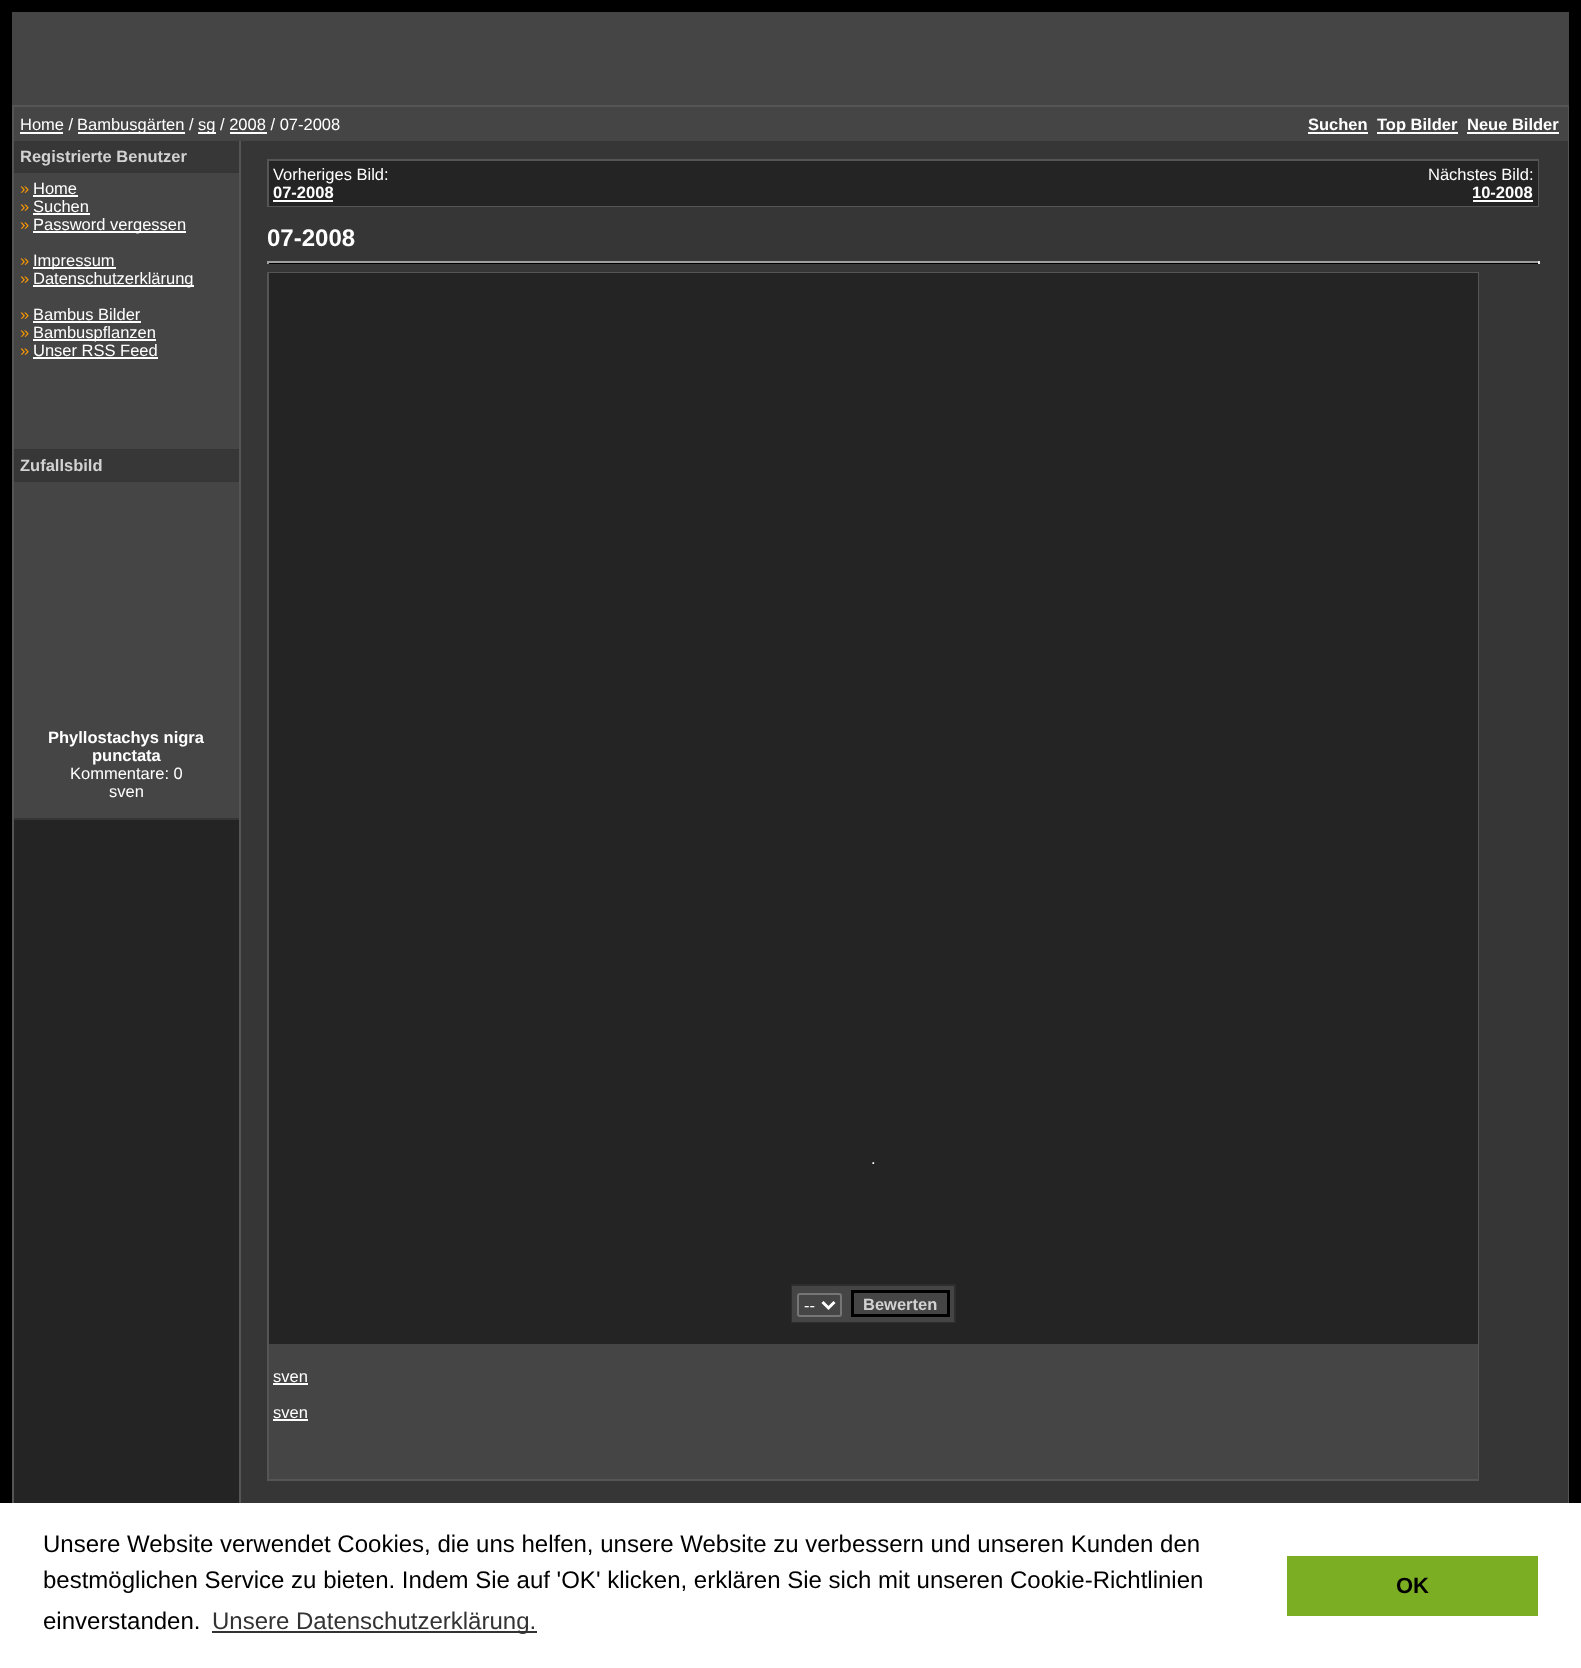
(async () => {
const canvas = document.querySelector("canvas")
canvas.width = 1581
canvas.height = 1668
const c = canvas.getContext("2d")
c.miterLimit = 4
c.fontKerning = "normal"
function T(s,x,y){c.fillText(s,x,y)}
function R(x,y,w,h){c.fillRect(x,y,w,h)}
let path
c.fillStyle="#000"
R(0,0,1581,1668)
c.fillStyle="#454545"
R(12,12,1557,93)
c.fillStyle="#555"
R(12,105,1557,1398)
c.fillStyle="#363636"
R(241,141,1327,1362)
c.fillStyle="#454545"
R(14,107,1554,34)
c.font="16.5px Liberation Sans"
c.fillStyle="#fff"
T("Home /",20,130)
R(20,132,43,2)
R(78,132,107,2)
T("Bambusgärten /",77,130)
R(198,132,18,2)
T("sg / 2008 / 07-2008",198,130)
R(230,132,37,2)
c.font="bold 16.5px Liberation Sans"
T("Suchen",1308,130)
R(1308,132,60,2)
R(1377,132,81,2)
T("Top Bilder",1377,130)
T("Neue Bilder",1467,130)
R(1467,132,92,2)
c.fillStyle="#242424"
R(14,820,225,683)
c.fillStyle="#373737"
R(14,141,225,30)
c.fillStyle="#d2d2d2"
T("Registrierte Benutzer",20,162)
c.fillStyle="#363636"
R(14,171,225,2)
c.fillStyle="#454545"
R(14,173,225,276)
c.font="16.5px Liberation Sans"
c.fillStyle="#fe9900"
T("»",20,194)
c.fillStyle="#fff"
T("Home",33,194)
R(33,195,45,2)
c.fillStyle="#fe9900"
T("»",20,212)
c.fillStyle="#fff"
T("Suchen",33,212)
R(33,213,57,2)
c.fillStyle="#fe9900"
T("»",20,230)
c.fillStyle="#fff"
R(33,231,153,2)
T("Password vergessen",33,230)
c.fillStyle="#fe9900"
T("»",20,266)
c.fillStyle="#fff"
R(33,267,83,2)
T("Impressum",33,266)
c.fillStyle="#fe9900"
T("»",20,284)
c.fillStyle="#fff"
R(33,285,161,2)
T("Datenschutzerklärung",33,284)
c.fillStyle="#fe9900"
T("»",20,320)
c.fillStyle="#fff"
T("Bambus Bilder",33,320)
R(33,321,108,2)
c.fillStyle="#fe9900"
T("»",20,338)
c.fillStyle="#fff"
R(33,339,123,2)
T("Bambuspflanzen",33,338)
c.fillStyle="#fe9900"
T("»",20,356)
c.fillStyle="#fff"
T("Unser RSS Feed",33,356)
R(33,357,125,2)
c.fillStyle="#363636"
R(14,449,225,1)
c.fillStyle="#373737"
R(14,450,225,30)
c.font="bold 16.5px Liberation Sans"
c.fillStyle="#d2d2d2"
T("Zufallsbild",20,471)
c.fillStyle="#363636"
R(14,480,225,2)
c.fillStyle="#454545"
R(14,482,225,336)
c.fillStyle="#fff"
T("Phyllostachys nigra",48,743)
T("punctata",92,761)
c.font="16.5px Liberation Sans"
T("Kommentare: 0",70,779)
T("sven",109,797)
c.fillStyle="#363636"
R(14,818,225,2)
c.fillStyle="#555"
R(267,159,1272,48)
c.fillStyle="#242424"
R(269,161,1269,45)
c.fillStyle="#fff"
T("Vorheriges Bild:",273,180)
c.font="bold 16.5px Liberation Sans"
T("07-2008",273,198)
R(273,200,60,2)
c.font="16.5px Liberation Sans"
T("Nächstes Bild:",1428,180)
c.font="bold 16.5px Liberation Sans"
T("10-2008",1472,198)
R(1473,200,60,2)
c.font="bold 24px Liberation Sans"
T("07-2008",267,246)
c.fillStyle="#000"
R(267,263,1272,1)
c.fillStyle="#9f9f9f"
R(267,261,1272,2)
c.fillStyle="#eee"
R(1538,261,2,3)
c.fillStyle="#9f9f9f"
R(267,261,2,3)
c.fillStyle="#555"
R(267,272,1212,1209)
c.fillStyle="#242424"
R(269,273,1209,1071)
c.font="16.5px Liberation Sans"
c.fillStyle="#fff"
T(".",871,1164)
c.fillStyle="#2e2e2e"
R(791,1284,165,39)
c.fillStyle="#454545"
R(792,1286,162,36)
c.beginPath()
c.roundRect(798,1294,43,22,2)
c.strokeStyle="#767676"
c.lineWidth=2
c.stroke()
path = new Path2D("M822.5 1302l6 6l6-6")
c.strokeStyle="#fff"
c.lineWidth=3
c.stroke(path)
c.fillStyle="#fff"
T("--",804,1311)
c.strokeStyle="#000"
c.strokeRect(852.5,1291.5,96,24)
c.font="bold 16.5px Liberation Sans"
c.fillStyle="#d2d2d2"
T("Bewerten",863,1310)
c.fillStyle="#454545"
R(269,1344,1209,135)
c.font="16.5px Liberation Sans"
c.fillStyle="#fff"
T("sven",273,1382)
R(273,1383,35,2)
T("sven",273,1418)
R(273,1419,35,2)
R(0,1503,1581,165)
c.font="24px Liberation Sans"
c.fillStyle="#000"
T("Unsere Website verwendet Cookies, die uns helfen, unsere Website zu verbessern und unseren Kunden den",43,1552)
T("bestmöglichen Service zu bieten. Indem Sie auf 'OK' klicken, erklären Sie sich mit unseren Cookie-Richtlinien",43,1588)
T("einverstanden.",43,1629)
c.fillStyle="#333"
R(212,1631,325,2)
T("Unsere Datenschutzerklärung.",212,1629)
c.fillStyle="#7bae23"
R(1287,1556,251,60)
c.font="bold 22px Liberation Sans"
c.fillStyle="#000"
T("OK",1396,1593)
})()
